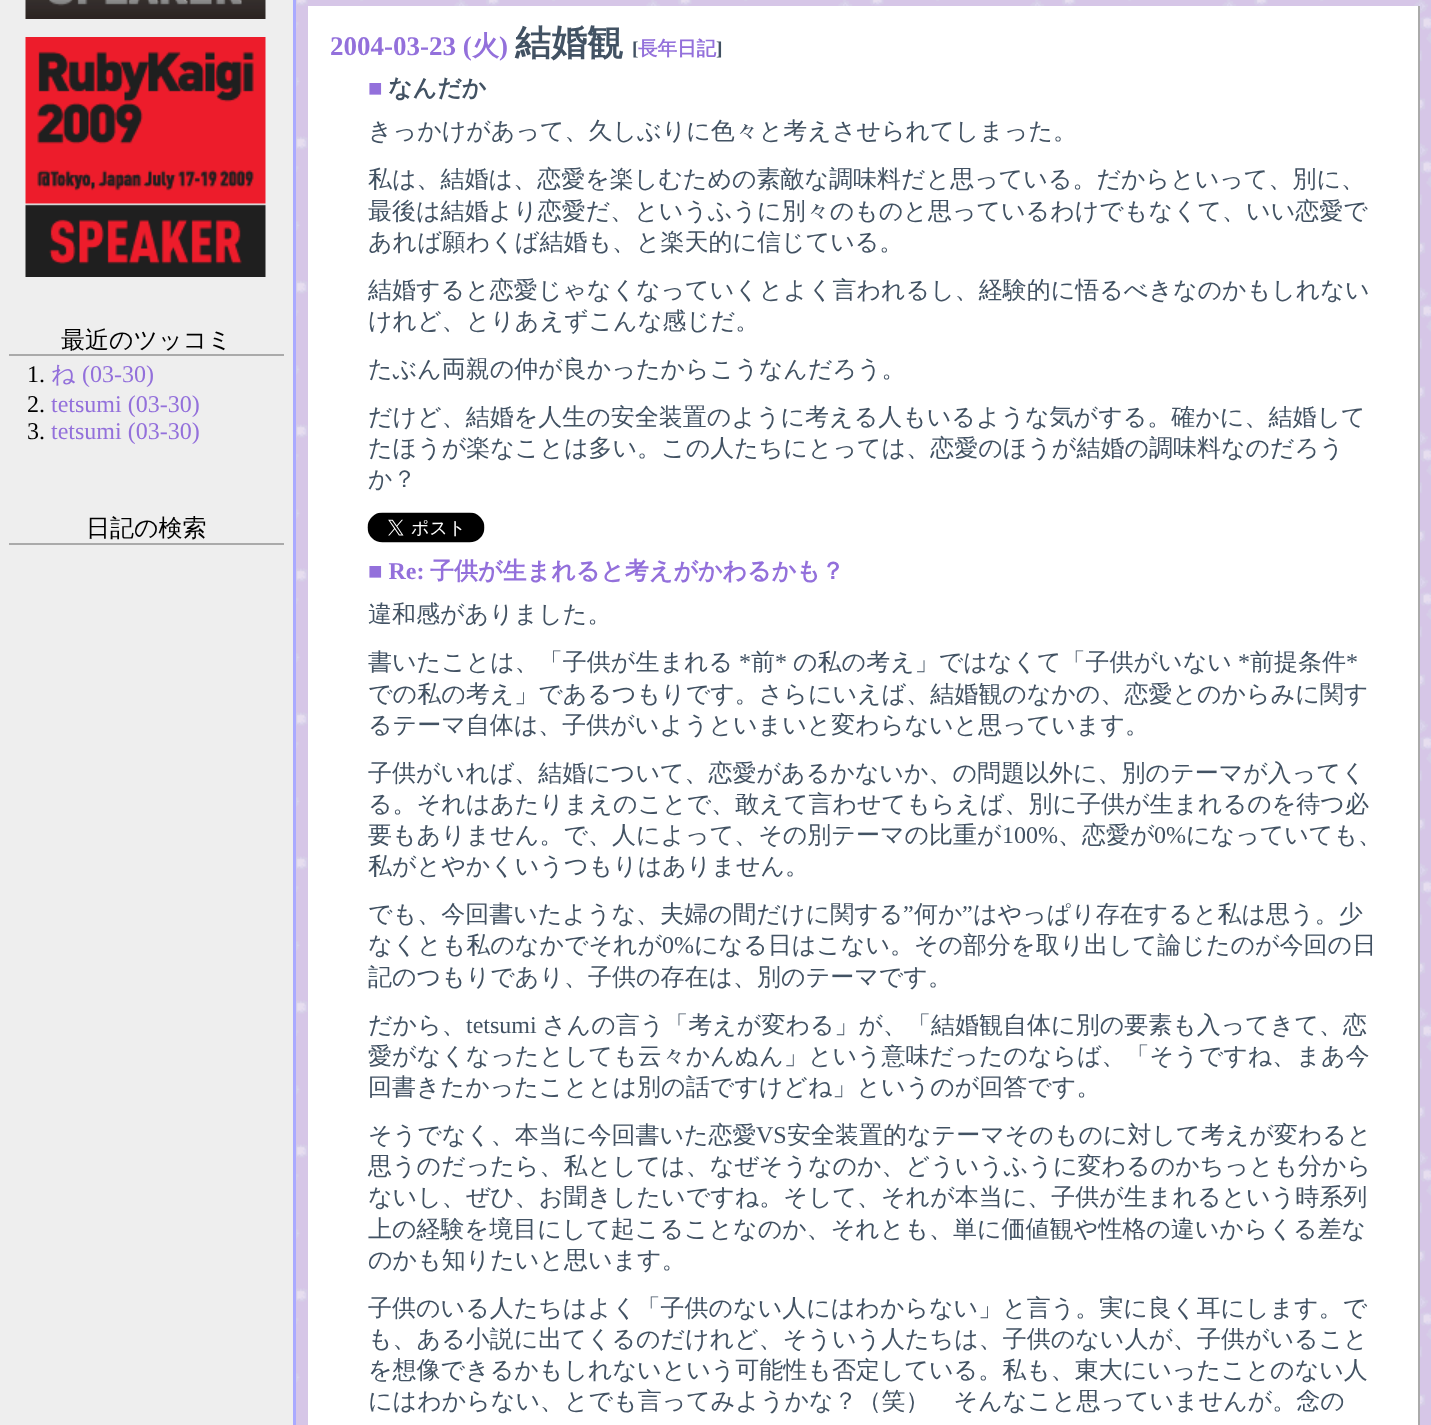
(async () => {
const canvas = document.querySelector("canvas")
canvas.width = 1431
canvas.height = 1425
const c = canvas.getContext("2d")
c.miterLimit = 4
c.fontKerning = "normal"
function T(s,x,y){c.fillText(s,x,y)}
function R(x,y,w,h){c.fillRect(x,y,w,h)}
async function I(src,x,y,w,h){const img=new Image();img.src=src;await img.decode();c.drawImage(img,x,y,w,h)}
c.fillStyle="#fff"
R(0,0,1431,1425)
await I("1.png",296,0,1135,1425)
c.fillStyle="#eee"
R(0,0,293,1425)
c.fillStyle="#aaf"
R(293,0,3,1425)
await I("2.png",25,0,241,19)
await I("3.png",25,37,241,240)
c.fillStyle="#aaa"
R(9,354,275,2)
c.font="500 24px WenQuanYi Zen Hei"
c.fillStyle="#000"
T("最近のツッコミ",61,348)
c.font="24px Liberation Serif"
T("1.",27,382)
c.font="500 24px WenQuanYi Zen Hei"
c.fillStyle="#9370db"
T("ね",51,382)
c.font="24px Liberation Serif"
T("(03-30)",82,382)
c.fillStyle="#000"
T("2.",27,412)
c.fillStyle="#9370db"
T("tetsumi (03-30)",51,412)
c.fillStyle="#000"
T("3.",27,439)
c.fillStyle="#9370db"
T("tetsumi (03-30)",51,439)
c.fillStyle="#aaa"
R(9,543,275,2)
c.font="500 24px WenQuanYi Zen Hei"
c.fillStyle="#000"
T("日記の検索",86,536)
c.fillStyle="#fff"
R(308,6,1110,1419)
c.fillStyle="#aaa"
R(1418,6,2,1419)
c.font="bold 27px Liberation Serif"
c.fillStyle="#9370db"
T("2004-03-23 (",330,55)
c.font="bold 27px WenQuanYi Zen Hei"
T("火",472,55)
c.font="bold 27px Liberation Serif"
T(")",499,55)
c.font="bold 36px WenQuanYi Zen Hei"
c.fillStyle="#425263"
T("結婚観",515,55)
c.font="bold 19.5px Liberation Serif"
T("[",632,55)
c.font="bold 19.5px WenQuanYi Zen Hei"
c.fillStyle="#9370db"
T("長年日記",638,55)
c.font="bold 19.5px Liberation Serif"
c.fillStyle="#425263"
T("]",716,55)
c.font="bold 24px Liberation Serif"
c.fillStyle="#9370db"
T("■",368,96)
c.font="bold 24px WenQuanYi Zen Hei"
c.fillStyle="#425263"
T("なんだか",388,96)
c.font="500 24px WenQuanYi Zen Hei"
T("きっかけがあって、久しぶりに色々と考えさせられてしまった。",368,139)
T("私は、結婚は、恋愛を楽しむための素敵な調味料だと思っている。だからといって、別に、",368,187)
T("最後は結婚より恋愛だ、というふうに別々のものと思っているわけでもなくて、いい恋愛で",368,219)
T("あれば願わくば結婚も、と楽天的に信じている。",368,250)
T("結婚すると恋愛じゃなくなっていくとよく言われるし、経験的に悟るべきなのかもしれない",368,298)
T("けれど、とりあえずこんな感じだ。",368,329)
T("たぶん両親の仲が良かったからこうなんだろう。",368,377)
T("だけど、結婚を人生の安全装置のように考える人もいるような気がする。確かに、結婚して",368,425)
T("たほうが楽なことは多い。この人たちにとっては、恋愛のほうが結婚の調味料なのだろう",368,456)
T("か？",368,487)
await I("4.png",367,512,118,31)
c.font="bold 24px Liberation Serif"
c.fillStyle="#9370db"
T("■ Re:",368,579)
c.font="bold 24px WenQuanYi Zen Hei"
T("子供が生まれると考えがかわるかも？",430,579)
c.font="500 24px WenQuanYi Zen Hei"
c.fillStyle="#425263"
T("違和感がありました。",368,622)
T("書いたことは、「子供が生まれる",368,670)
c.font="24px Liberation Serif"
T("*",739,670)
c.font="500 24px WenQuanYi Zen Hei"
T("前",751,670)
c.font="24px Liberation Serif"
T("*",775,670)
c.font="500 24px WenQuanYi Zen Hei"
T("の私の考え」ではなくて「子供がいない",793,670)
c.font="24px Liberation Serif"
T("*",1238,670)
c.font="500 24px WenQuanYi Zen Hei"
T("前提条件",1250,670)
c.font="24px Liberation Serif"
T("*",1346,670)
c.font="500 24px WenQuanYi Zen Hei"
T("での私の考え」であるつもりです。さらにいえば、結婚観のなかの、恋愛とのからみに関す",368,702)
T("るテーマ自体は、子供がいようといまいと変わらないと思っています。",368,733)
T("子供がいれば、結婚について、恋愛があるかないか、の問題以外に、別のテーマが入ってく",368,781)
T("る。それはあたりまえのことで、敢えて言わせてもらえば、別に子供が生まれるのを待つ必",368,812)
T("要もありません。で、人によって、その別テーマの比重が",368,843)
c.font="24px Liberation Serif"
T("100%",1002,843)
c.font="500 24px WenQuanYi Zen Hei"
T("、恋愛が",1058,843)
c.font="24px Liberation Serif"
T("0%",1154,843)
c.font="500 24px WenQuanYi Zen Hei"
T("になっていても、",1186,843)
T("私がとやかくいうつもりはありません。",368,874)
T("でも、今回書いたような、夫婦の間だけに関する",368,922)
c.font="24px Liberation Serif"
T("”",903,922)
c.font="500 24px WenQuanYi Zen Hei"
T("何か",914,922)
c.font="24px Liberation Serif"
T("”",962,922)
c.font="500 24px WenQuanYi Zen Hei"
T("はやっぱり存在すると私は思う。少",973,922)
T("なくとも私のなかでそれが",368,953)
c.font="24px Liberation Serif"
T("0%",662,953)
c.font="500 24px WenQuanYi Zen Hei"
T("になる日はこない。その部分を取り出して論じたのが今回の日",694,953)
T("記のつもりであり、子供の存在は、別のテーマです。",368,985)
T("だから、",368,1033)
c.font="24px Liberation Serif"
T("tetsumi",466,1033)
c.font="500 24px WenQuanYi Zen Hei"
T("さんの言う「考えが変わる」が、「結婚観自体に別の要素も入ってきて、恋",542,1033)
T("愛がなくなったとしても云々かんぬん」という意味だったのならば、「そうですね、まあ今",368,1064)
T("回書きたかったこととは別の話ですけどね」というのが回答です。",368,1095)
T("そうでなく、本当に今回書いた恋愛",368,1143)
c.font="24px Liberation Serif"
T("VS",756,1143)
c.font="500 24px WenQuanYi Zen Hei"
T("安全装置的なテーマそのものに対して考えが変わると",787,1143)
T("思うのだったら、私としては、なぜそうなのか、どういうふうに変わるのかちっとも分から",368,1174)
T("ないし、ぜひ、お聞きしたいですね。そして、それが本当に、子供が生まれるという時系列",368,1205)
T("上の経験を境目にして起こることなのか、それとも、単に価値観や性格の違いからくる差な",368,1237)
T("のかも知りたいと思います。",368,1268)
T("子供のいる人たちはよく「子供のない人にはわからない」と言う。実に良く耳にします。で",368,1316)
T("も、ある小説に出てくるのだけれど、そういう人たちは、子供のない人が、子供がいること",368,1347)
T("を想像できるかもしれないという可能性も否定している。私も、東大にいったことのない人",368,1378)
T("にはわからない、とでも言ってみようかな？（笑）　そんなこと思っていませんが。念の",368,1409)
})()
